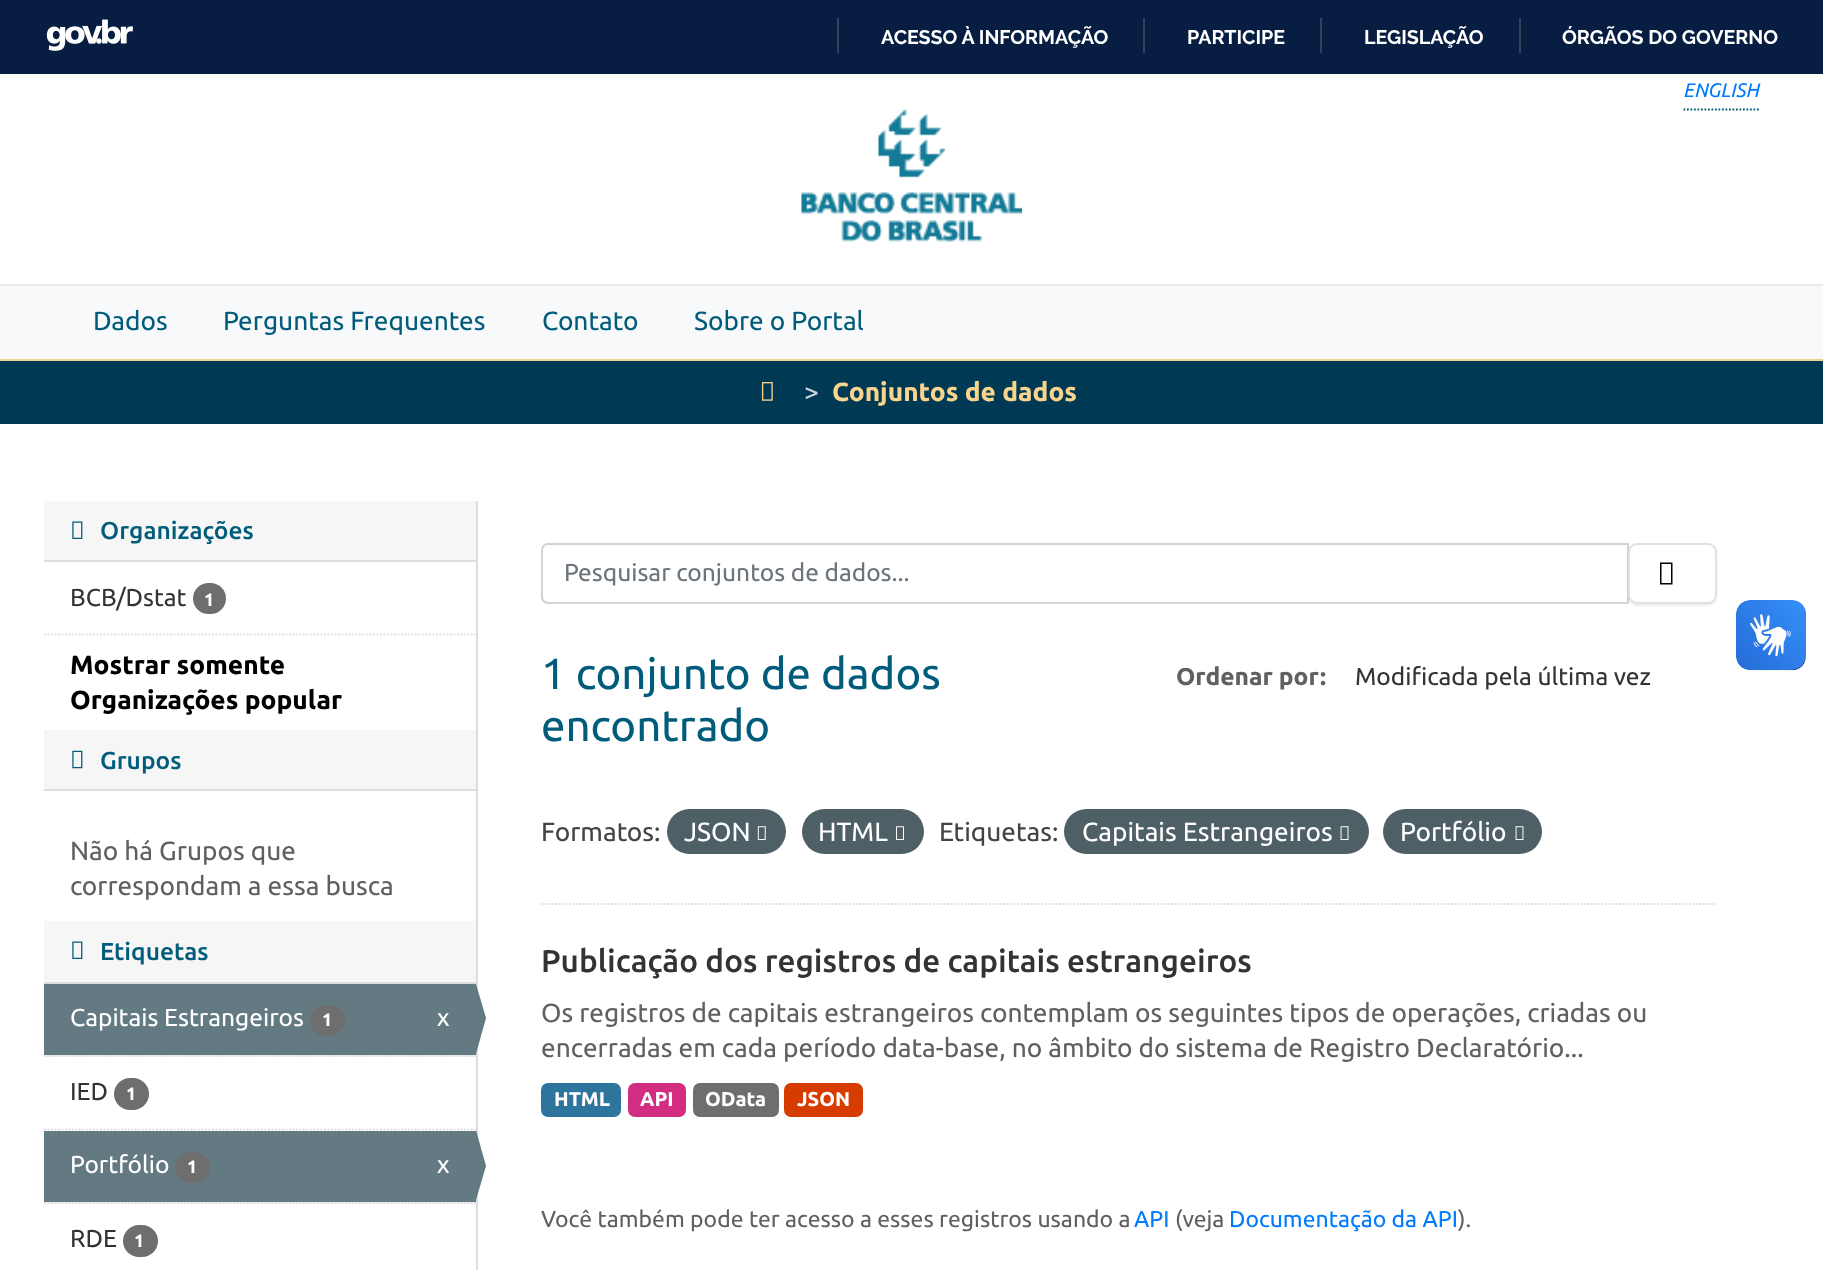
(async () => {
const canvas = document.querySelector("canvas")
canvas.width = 1823
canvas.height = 1270
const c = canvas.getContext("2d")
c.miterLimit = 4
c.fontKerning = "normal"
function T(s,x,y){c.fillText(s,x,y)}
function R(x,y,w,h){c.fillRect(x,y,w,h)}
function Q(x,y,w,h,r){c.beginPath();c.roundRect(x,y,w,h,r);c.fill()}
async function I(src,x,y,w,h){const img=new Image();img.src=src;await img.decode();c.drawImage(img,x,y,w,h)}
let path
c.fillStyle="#fff"
R(0,0,1823,1270)
c.fillStyle="#071d41"
R(0,0,1823,74)
await I("1.png",46,19,87,32)
c.fillStyle="#32425b"
R(837,18,2,35)
c.font="bold 19.6px Raleway"
c.fillStyle="#fff"
T("ACESSO À INFORMAÇÃO",881,44)
c.fillStyle="#32425b"
R(1143,18,2,35)
c.fillStyle="#fff"
T("PARTICIPE",1187,44)
c.fillStyle="#32425b"
R(1320,18,2,35)
c.fillStyle="#fff"
T("LEGISLAÇÃO",1364,44)
c.fillStyle="#32425b"
R(1519,18,2,35)
c.fillStyle="#fff"
T("ÓRGÃOS DO GOVERNO",1562,44)
path = new Path2D("M1683.5 109.5h75.5")
c.strokeStyle="#025c75"
c.lineWidth=1.8
c.setLineDash([1.75,1.75])
c.stroke(path)
c.font="italic 19.6px Ubuntu"
c.fillStyle="#007bff"
T("ENGLISH",1683,97)
await I("2.png",801,108,221,134)
c.fillStyle="#f8f9fa"
R(0,286,1823,73)
c.fillStyle="#eaeaea"
R(0,284,1823,2)
c.fillStyle="#edd297"
R(0,359,1823,2)
c.font="26.25px Ubuntu"
c.fillStyle="#005c7a"
T("Dados",93,330)
T("Perguntas Frequentes",223,330)
T("Contato",542,330)
T("Sobre o Portal",694,330)
c.fillStyle="#003954"
R(0,361,1823,63)
await I("3.png",761,382,12,19)
c.fillStyle="#ccd7dd"
T(">",804,401)
c.font="bold 26.25px Ubuntu"
c.fillStyle="#f8d48d"
T("Conjuntos de dados",832,401)
c.fillStyle="#f6f6f6"
c.beginPath()
c.roundRect(44,501,432,61,[5,0,0,0])
c.fill()
c.fillStyle="#ddd"
R(44,560,432,2)
await I("4.png",72,521,11,18)
c.font="500 24.5px Ubuntu"
c.fillStyle="#005c7a"
T("Organizações",100,539)
c.font="24.5px Ubuntu"
c.fillStyle="#333"
T("BCB/Dstat",70,606)
c.fillStyle="#6e6e6e"
Q(193,583,33,31,15.5)
c.font="bold 18px Ubuntu"
c.fillStyle="#fff"
T("1",204,606)
path = new Path2D("M44 634.5h432")
c.strokeStyle="#ddd"
c.stroke(path)
c.font="bold 26.25px Ubuntu"
c.fillStyle="#000"
T("Mostrar somente",70,674)
T("Organizações popular",70,709)
c.fillStyle="#f6f6f6"
R(44,730,432,59)
c.fillStyle="#ddd"
R(44,789,432,2)
await I("5.png",72,750,11,19)
c.font="500 24.5px Ubuntu"
c.fillStyle="#005c7a"
T("Grupos",100,769)
c.font="26.25px Ubuntu"
c.fillStyle="#606060"
T("Não há Grupos que",70,860)
T("correspondam a essa busca",70,895)
c.fillStyle="#f6f6f6"
R(44,921,432,61)
c.fillStyle="#ddd"
R(44,982,432,2)
await I("4.png",72,941,11,18)
c.font="500 24.5px Ubuntu"
c.fillStyle="#005c7a"
T("Etiquetas",100,960)
c.fillStyle="#f6f6f6"
R(44,1055,432,2)
path = new Path2D("M44 1056h432")
c.stroke(path)
c.fillStyle="#647a82"
R(44,984,432,71)
c.font="24.5px Ubuntu"
c.fillStyle="#fff"
T("Capitais Estrangeiros",70,1026)
c.fillStyle="#6e6e6e"
Q(310,1005,35,31,15.5)
c.font="bold 18px Ubuntu"
c.fillStyle="#fff"
T("1",322,1026)
c.font="24.5px Ubuntu"
T("x",437,1026)
c.fillStyle="#ddd"
R(476,501,2,769)
c.fillStyle="#647a82"
path = new Path2D("M476 1054v-70l10 34z")
c.fill(path)
path = new Path2D("M44 1129.5h432")
c.stroke(path)
c.fillStyle="#333"
T("IED",70,1100)
c.fillStyle="#6e6e6e"
Q(114,1078,35,32,16)
c.font="bold 18px Ubuntu"
c.fillStyle="#fff"
T("1",126,1100)
c.fillStyle="#f6f6f6"
R(44,1202,432,2)
path = new Path2D("M44 1203h432")
c.stroke(path)
c.fillStyle="#647a82"
R(44,1131,432,71)
c.font="24.5px Ubuntu"
c.fillStyle="#fff"
T("Portfólio",70,1173)
c.fillStyle="#6e6e6e"
Q(175,1152,35,31,15.5)
c.font="bold 18px Ubuntu"
c.fillStyle="#fff"
T("1",187,1173)
c.font="24.5px Ubuntu"
T("x",437,1173)
c.fillStyle="#647a82"
path = new Path2D("M476 1200v-70l10 36z")
c.fill(path)
c.fillStyle="#333"
T("RDE",70,1247)
c.fillStyle="#6e6e6e"
Q(123,1225,35,32,16)
c.font="bold 18px Ubuntu"
c.fillStyle="#fff"
T("1",134,1247)
path = new Path2D("M541 904h1176")
c.stroke(path)
c.beginPath()
c.roundRect(542,544,1086,59,[6,0,0,6])
c.strokeStyle="#ced4da"
c.lineWidth=2
c.setLineDash([])
c.stroke()
c.font="24.5px Ubuntu"
c.fillStyle="#6c757d"
T("Pesquisar conjuntos de dados...",564,581)
c.fillStyle="#00000012"
c.filter="blur(1px)"
c.beginPath()
c.roundRect(1628,544,89,62,9)
c.fill()
c.filter="none"
c.fillStyle="#fff"
c.beginPath()
c.roundRect(1629,544,87,59,8)
c.fill()
c.strokeStyle="#dee2e6"
c.stroke()
c.fillStyle="#000"
path = new Path2D("M1660 584.5v-22h12.5v22zm1.5-1.5h9.5v-19h-9.5z")
c.fill(path)
c.font="43.75px Ubuntu"
c.fillStyle="#005c7a"
T("1 conjunto de dados",541,689)
T("encontrado",541,741)
c.font="bold 24.5px Ubuntu"
c.fillStyle="#606060"
T("Ordenar por",1176,685)
T(":",1320,685)
c.font="24.5px Ubuntu"
c.fillStyle="#333"
T("Modificada pela última vez",1355,685)
c.font="26.25px Ubuntu"
c.fillStyle="#444"
T("Formatos:",541,841)
c.fillStyle="#4e5f65"
Q(667,809,119,45,22.5)
c.fillStyle="#fff"
T("JSON",684,841)
await I("6.png",757,826,9,14)
c.fillStyle="#4e5f65"
Q(802,809,122,45,22.5)
c.fillStyle="#fff"
T("HTML",818,841)
await I("7.png",896,826,8,14)
c.fillStyle="#444"
T("Etiquetas:",939,841)
c.fillStyle="#4e5f65"
Q(1064,809,305,45,22.5)
c.fillStyle="#fff"
T("Capitais Estrangeiros",1082,841)
await I("8.png",1340,826,9,14)
c.fillStyle="#4e5f65"
Q(1383,809,159,45,22.5)
c.fillStyle="#fff"
T("Portfólio",1400,841)
await I("8.png",1515,826,9,14)
c.font="500 31.5px Ubuntu"
c.fillStyle="#333"
T("Publicação dos registros de capitais estrangeiros",541,972)
c.font="26.25px Ubuntu"
c.fillStyle="#606060"
T("Os registros de capitais estrangeiros contemplam os seguintes tipos de operações, criadas ou",541,1022)
T("encerradas em cada período data-base, no âmbito do sistema de Registro Declaratório...",541,1057)
c.fillStyle="#2e759e"
Q(541,1083,80,34,7)
c.font="bold 20px Ubuntu"
c.fillStyle="#fff"
T("HTML",554,1106)
c.fillStyle="#d22d81"
Q(628,1083,58,34,7)
c.fillStyle="#fff"
T("API",640,1106)
c.fillStyle="#6e6e6e"
Q(693,1083,86,34,7)
c.fillStyle="#fff"
T("OData",705,1106)
c.fillStyle="#d63b00"
Q(784,1083,79,34,7)
c.fillStyle="#fff"
T("JSON",797,1106)
c.font="23px Ubuntu"
c.fillStyle="#606060"
T("Você também pode ter acesso a esses registros usando a",541,1227)
c.fillStyle="#007bff"
T("API",1134,1227)
c.fillStyle="#606060"
T("(veja",1175,1227)
c.fillStyle="#007bff"
T("Documentação da API",1229,1227)
c.fillStyle="#606060"
T(").",1458,1227)
await I("9.png",1736,600,70,71)
await I("10.png",1736,600,70,70)
})()
